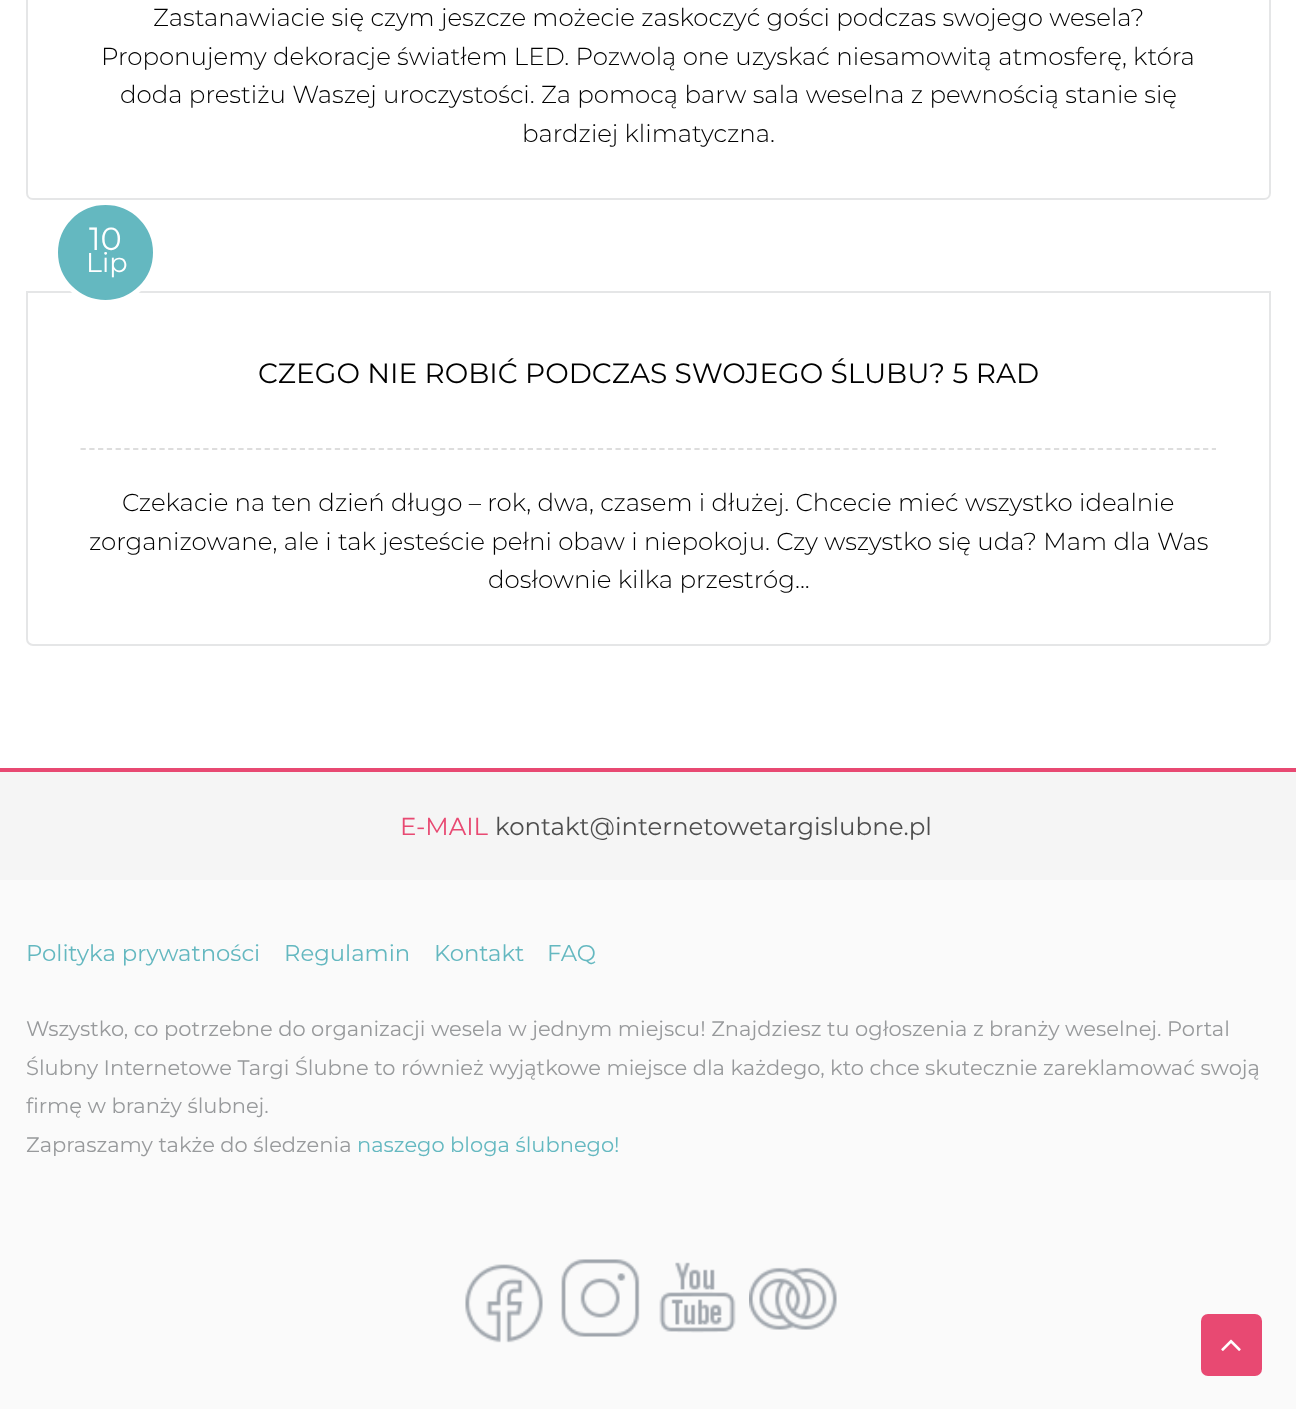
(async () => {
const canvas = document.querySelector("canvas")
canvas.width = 1296
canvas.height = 1409
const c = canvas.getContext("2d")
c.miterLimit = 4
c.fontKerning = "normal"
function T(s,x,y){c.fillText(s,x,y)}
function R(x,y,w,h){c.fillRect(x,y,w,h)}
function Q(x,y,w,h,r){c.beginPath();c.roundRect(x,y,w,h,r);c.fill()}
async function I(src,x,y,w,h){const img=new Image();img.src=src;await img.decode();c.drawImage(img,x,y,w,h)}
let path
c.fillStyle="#fff"
R(0,0,1296,1409)
c.fillStyle="#e84972"
R(0,768,1296,4)
path = new Path2D("M27-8h1243v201c0 3.5-2.5 6-6 6h-1231c-3.5 0-6-2.5-6-6z")
c.strokeStyle="#e5e6e7"
c.lineWidth=2
c.stroke(path)
c.font="300 24.5px Montserrat"
c.fillStyle="#000"
T("Zastanawiacie się czym jeszcze możecie zaskoczyć gości podczas swojego wesela?",153,26)
T("Proponujemy dekoracje światłem LED. Pozwolą one uzyskać niesamowitą atmosferę, która",101,65)
T("doda prestiżu Waszej uroczystości. Za pomocą barw sala weselna z pewnością stanie się",120,103)
T("bardziej klimatyczna.",522,142)
c.beginPath()
c.roundRect(27,292,1243,353,[0,0,6,6])
c.stroke()
c.fillStyle="#64b8c0"
c.beginPath()
c.arc(105.5,252.5,50,0,7)
c.fill()
c.strokeStyle="#fff"
c.lineWidth=5
c.stroke()
c.font="32px Montserrat"
c.fillStyle="#fff"
T("10",89,250)
c.font="27px Montserrat"
T("Lip",86,272)
c.font="28px Montserrat"
c.fillStyle="#000"
T("CZEGO NIE ROBIĆ PODCZAS SWOJEGO ŚLUBU? 5 RAD",258,383)
path = new Path2D("M80.5 449h1135.5")
c.strokeStyle="#ddd"
c.lineWidth=1.8
c.setLineDash([5.25,3.52])
c.stroke(path)
c.font="300 24.5px Montserrat"
T("Czekacie na ten dzień długo – rok, dwa, czasem i dłużej. Chcecie mieć wszystko idealnie",122,511)
T("zorganizowane, ale i tak jesteście pełni obaw i niepokoju. Czy wszystko się uda? Mam dla Was",89,550)
T("dosłownie kilka przestróg...",488,588)
c.fillStyle="#f5f5f5"
R(0,772,1296,108)
c.font="24.5px Montserrat"
c.fillStyle="#e84972"
T("E-MAIL",400,835)
c.fillStyle="#4e4e4e"
T("kontakt@internetowetargislubne.pl",495,835)
c.fillStyle="#fafafa"
R(0,880,1296,529)
c.font="22.75px Montserrat"
c.fillStyle="#64b8c0"
T("Polityka prywatności",26,961)
T("Regulamin",284,961)
T("Kontakt",434,961)
T("FAQ",547,961)
c.font="21px Montserrat"
c.fillStyle="#989a9c"
T("Wszystko, co potrzebne do organizacji wesela w jednym miejscu! Znajdziesz tu ogłoszenia z branży weselnej. Portal",26,1036)
T("Ślubny Internetowe Targi Ślubne to również wyjątkowe miejsce dla każdego, kto chce skutecznie zareklamować swoją",26,1075)
T("firmę w branży ślubnej.",26,1113)
T("Zapraszamy także do śledzenia",26,1152)
c.fillStyle="#64b8c0"
T("naszego bloga ślubnego!",357,1152)
await I("1.png",465,1264,78,79)
await I("2.png",561,1259,79,78)
await I("3.png",659,1262,77,71)
await I("4.png",749,1267,88,63)
c.fillStyle="#e84972"
Q(1201,1314,61,62,7)
await I("5.png",1221,1339,20,12)
})()
